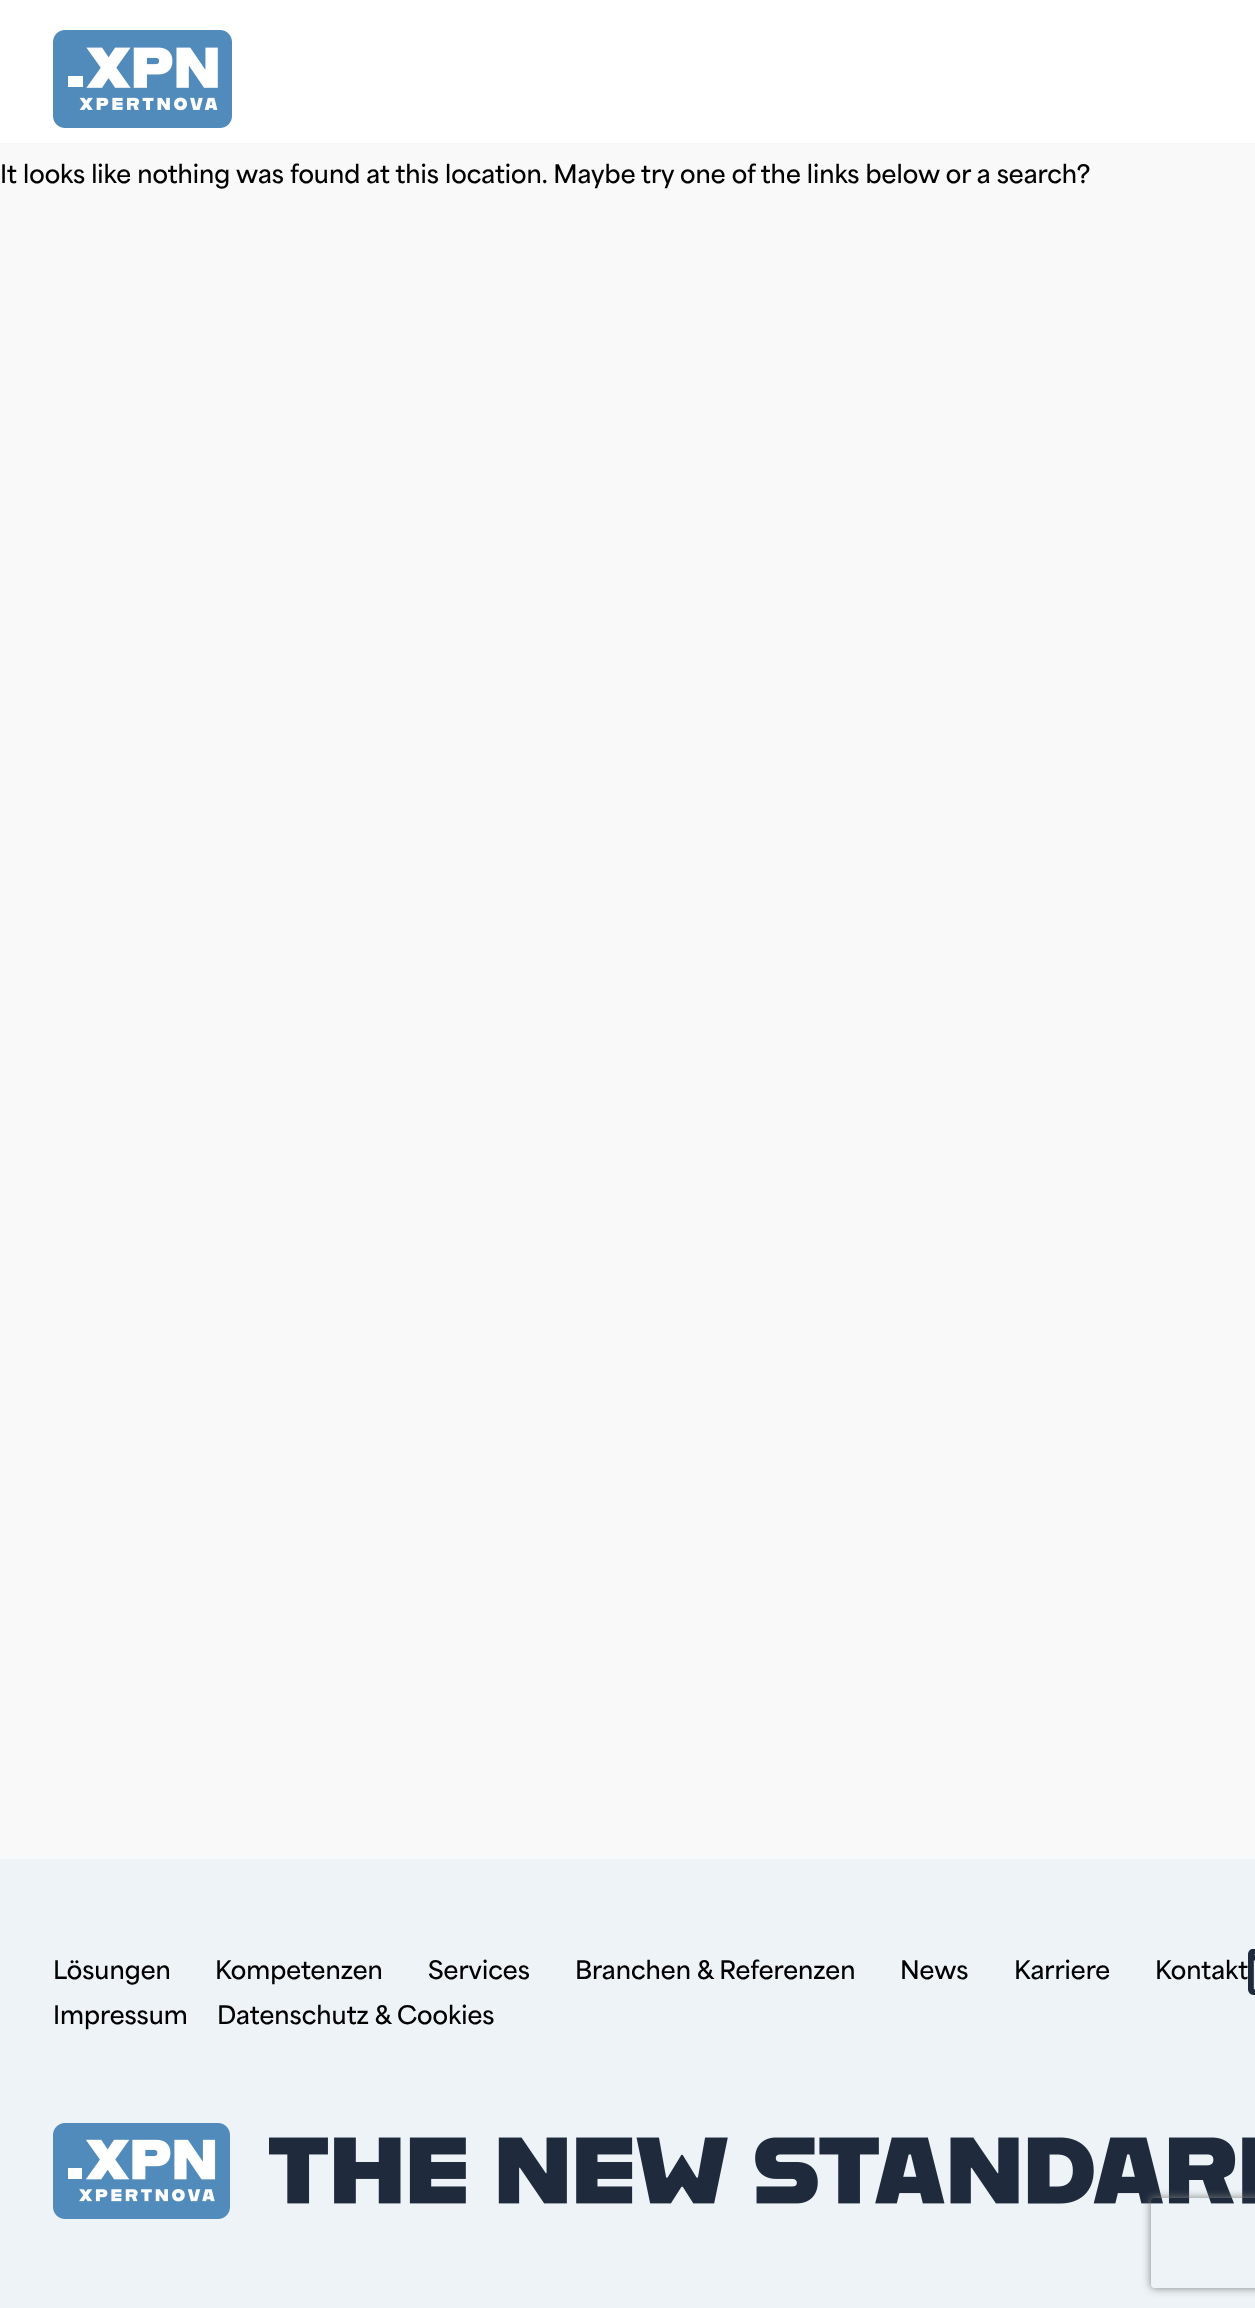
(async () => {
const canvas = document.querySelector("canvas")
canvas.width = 1255
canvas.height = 2308
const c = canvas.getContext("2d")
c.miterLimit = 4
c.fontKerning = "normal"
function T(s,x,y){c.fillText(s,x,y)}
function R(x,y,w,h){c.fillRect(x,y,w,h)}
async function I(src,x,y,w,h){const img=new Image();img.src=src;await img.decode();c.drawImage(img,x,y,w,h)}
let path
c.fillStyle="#f9f9f9"
R(0,0,1255,2308)
c.fillStyle="#fff"
R(0,0,1255,143)
await I("1.png",53,30,179,98)
c.font="600 24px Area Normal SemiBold"
c.fillStyle="#000"
T("It looks like nothing was found at this location. Maybe try one of the links below or a search?",0,183)
c.fillStyle="#edf3f7"
R(0,1859,1255,449)
c.fillStyle="#000"
T("Lösungen",53,1979)
T("Kompetenzen",215,1979)
T("Services",428,1979)
T("Branchen & Referenzen",575,1979)
T("News",900,1979)
T("Karriere",1014,1979)
T("Kontakt",1155,1979)
await I("2.png",1248,1949,7,46)
T("Impressum",53,2024)
T("Datenschutz & Cookies",217,2024)
await I("3.png",53,2123,177,96)
await I("4.png",269,2137,986,67)
c.save()
path = new Path2D("M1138 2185h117v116h-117zm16 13h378c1.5 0 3 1.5 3 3v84c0 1.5-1.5 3-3 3h-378c-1.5 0-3-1.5-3-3v-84c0-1.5 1.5-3 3-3z")
c.clip(path,"evenodd")
c.fillStyle="#808080"
c.filter="blur(4px)"
c.beginPath()
c.roundRect(1151,2198,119,90,3)
c.fill()
c.filter="none"
c.restore()
})()
